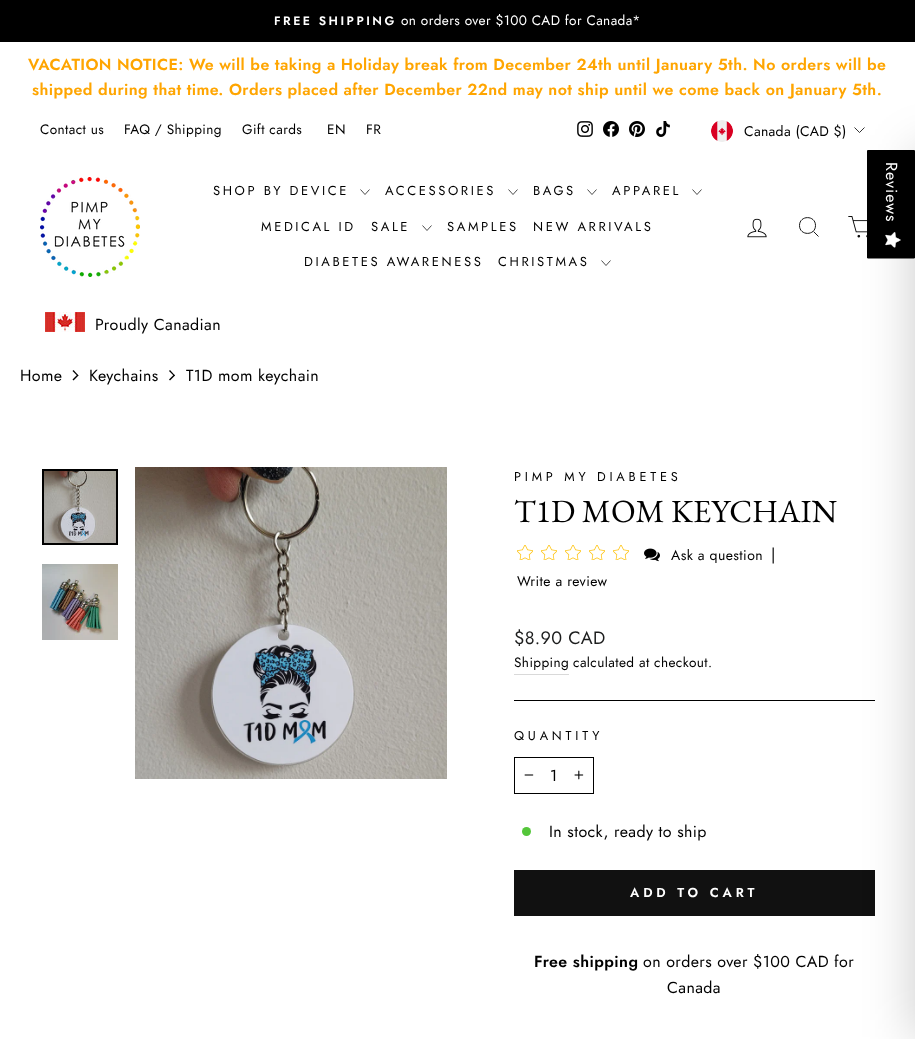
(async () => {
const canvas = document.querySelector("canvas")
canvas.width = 915
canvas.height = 1039
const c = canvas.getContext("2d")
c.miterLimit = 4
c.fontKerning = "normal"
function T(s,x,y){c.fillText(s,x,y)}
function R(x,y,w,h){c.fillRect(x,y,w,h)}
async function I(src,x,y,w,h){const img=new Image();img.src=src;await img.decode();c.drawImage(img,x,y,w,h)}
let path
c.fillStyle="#fff"
R(0,0,915,1039)
c.fillStyle="#000"
R(0,0,915,42)
c.letterSpacing="2.5px"
c.font="600 12.25px Jost"
c.fillStyle="#fff"
T("FREE SHIPPING",274,25)
c.letterSpacing="0.4px"
c.font="13.6px Jost"
T("on orders over $100 CAD for Canada*",401,25)
c.font="600 16px Jost"
c.fillStyle="#ffa500"
T("VACATION NOTICE: We will be taking a Holiday break from December 24th until January 5th. No orders will be",28,70)
T("shipped during that time. Orders placed after December 22nd may not ship until we come back on January 5th.",32,95)
c.font="13.6px Jost"
c.fillStyle="#000"
T("Contact us",40,134)
T("FAQ / Shipping",124,134)
T("Gift cards",242,134)
T("EN",327,134)
T("FR",366,134)
await I("1.png",577,121,16,16)
await I("2.png",603,121,16,16)
await I("3.png",629,121,16,16)
await I("4.png",656,121,14,16)
await I("5.png",711,120,22,22)
c.letterSpacing="0.3px"
c.font="14px Jost"
T("Canada (CAD $)",744,136)
path = new Path2D("M854.5 127.5l5 5l5-5")
c.strokeStyle="#000"
c.lineWidth=0.8
c.stroke(path)
await I("6.png",40,177,100,100)
c.letterSpacing="2.6px"
c.font="13px Jost"
T("SHOP BY DEVICE",213,195)
path = new Path2D("M360.5 189.5l4.5 5l4.5-5")
c.lineWidth=0.7
c.stroke(path)
T("ACCESSORIES",385,195)
path = new Path2D("M508.5 189.5l4.5 5l4.5-5")
c.stroke(path)
T("BAGS",533,195)
path = new Path2D("M587.5 189.5l4.5 5l4.5-5")
c.stroke(path)
T("APPAREL",612,195)
path = new Path2D("M692.5 189.5l4.5 5l4.5-5")
c.stroke(path)
T("MEDICAL ID",261,231)
T("SALE",371,231)
path = new Path2D("M422.5 225.5l4.5 5l4.5-5")
c.stroke(path)
T("SAMPLES",447,231)
T("NEW ARRIVALS",533,231)
T("DIABETES AWARENESS",304,266)
T("CHRISTMAS",498,266)
path = new Path2D("M601.5 260.5l4.5 5l4.5-5")
c.stroke(path)
await I("7.png",747,218,20,20)
path = new Path2D("M815.5 225.5c0 10.5-16 10.5-16 0c0-10.5 16-10.5 16 0zm3 11l-5-5")
c.lineWidth=0.9
c.stroke(path)
await I("8.png",848,216,19,22)
R(514,700,361,1)
c.fillStyle="#111"
R(514,870,361,46)
c.fillStyle="#00000033"
c.filter="blur(25px)"
c.beginPath()
c.rect(914,152,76,885)
c.fill()
c.filter="none"
c.fillStyle="#000"
R(868,151,46,107)
path = new Path2D("M914.5 150.5v107.5h-47v-107.5z")
c.lineWidth=1
c.stroke(path)
c.letterSpacing="1px"
c.font="16px Jost"
c.fillStyle="#fff"
c.save()
c.translate(886,162)
c.rotate(90 * Math.PI / 180)
c.fillText("Reviews",0,0)
c.restore()
await I("9.png",885,232,16,16)
c.letterSpacing="0.4px"
c.fillStyle="#000"
T("Home",20,381)
path = new Path2D("M73.5 370l5 5.5l-1 .5l-5-5z")
c.fill(path)
path = new Path2D("M77.5 374.5l1 1l-5 5l-1-1z")
c.fill(path)
T("Keychains",89,381)
path = new Path2D("M170 370l5 5.5l-1 .5l-5-5z")
c.fill(path)
path = new Path2D("M174 374.5l1 1l-5 5l-1-1z")
c.fill(path)
T("T1D mom keychain",186,381)
await I("10.png",44,471,72,72)
c.lineWidth=2
c.strokeRect(43,470,74,74)
await I("11.png",42,564,76,76)
await I("12.png",135,467,312,312)
c.letterSpacing="3.8px"
c.font="12.75px Jost"
T("PIMP MY DIABETES",514,481)
c.letterSpacing="0px"
c.font="32.25px EB Garamond"
T("T1D MOM KEYCHAIN",514,522)
await I("13.png",517,545,16,15)
await I("13.png",541,545,16,15)
await I("13.png",565,545,16,15)
await I("13.png",589,545,16,15)
await I("13.png",613,545,16,15)
await I("14.png",644,548,16,14)
c.letterSpacing="0.4px"
c.font="14px Jost"
T("Ask a question",671,560)
c.font="16px Jost"
T("|",771,560)
c.font="14px Jost"
T("Write a review",517,586)
c.font="18px Jost"
c.fillStyle="#1c1d1d"
T("$8.90 CAD",514,644)
c.fillStyle="#d9d9d9"
R(514,674,55,1)
c.font="13.6px Jost"
c.fillStyle="#000"
T("Shipping",514,667)
T("calculated at checkout.",573,667)
c.letterSpacing="3.8px"
c.font="12.75px Jost"
T("QUANTITY",514,740)
c.lineWidth=1
c.strokeRect(514.5,757.5,79,36)
await I("15.png",524,774,10,2)
c.letterSpacing="0.4px"
c.font="16px Jost"
T("1",550,781)
await I("16.png",574,770,10,10)
c.fillStyle="#54c63a"
c.beginPath()
c.arc(526.5,831.5,4.5,0,7)
c.fill()
c.fillStyle="#000"
T("In stock, ready to ship",549,837)
c.letterSpacing="3.9px"
c.font="600 13px Jost"
c.fillStyle="#fff"
T("ADD TO CART",630,897)
c.letterSpacing="0.4px"
c.font="600 16px Jost"
c.fillStyle="#000"
T("Free shipping",534,967)
c.font="16px Jost"
T("on orders over $100 CAD for",643,967)
T("Canada",667,993)
await I("17.png",45,312,40,20)
T("Proudly Canadian",95,330)
})()
